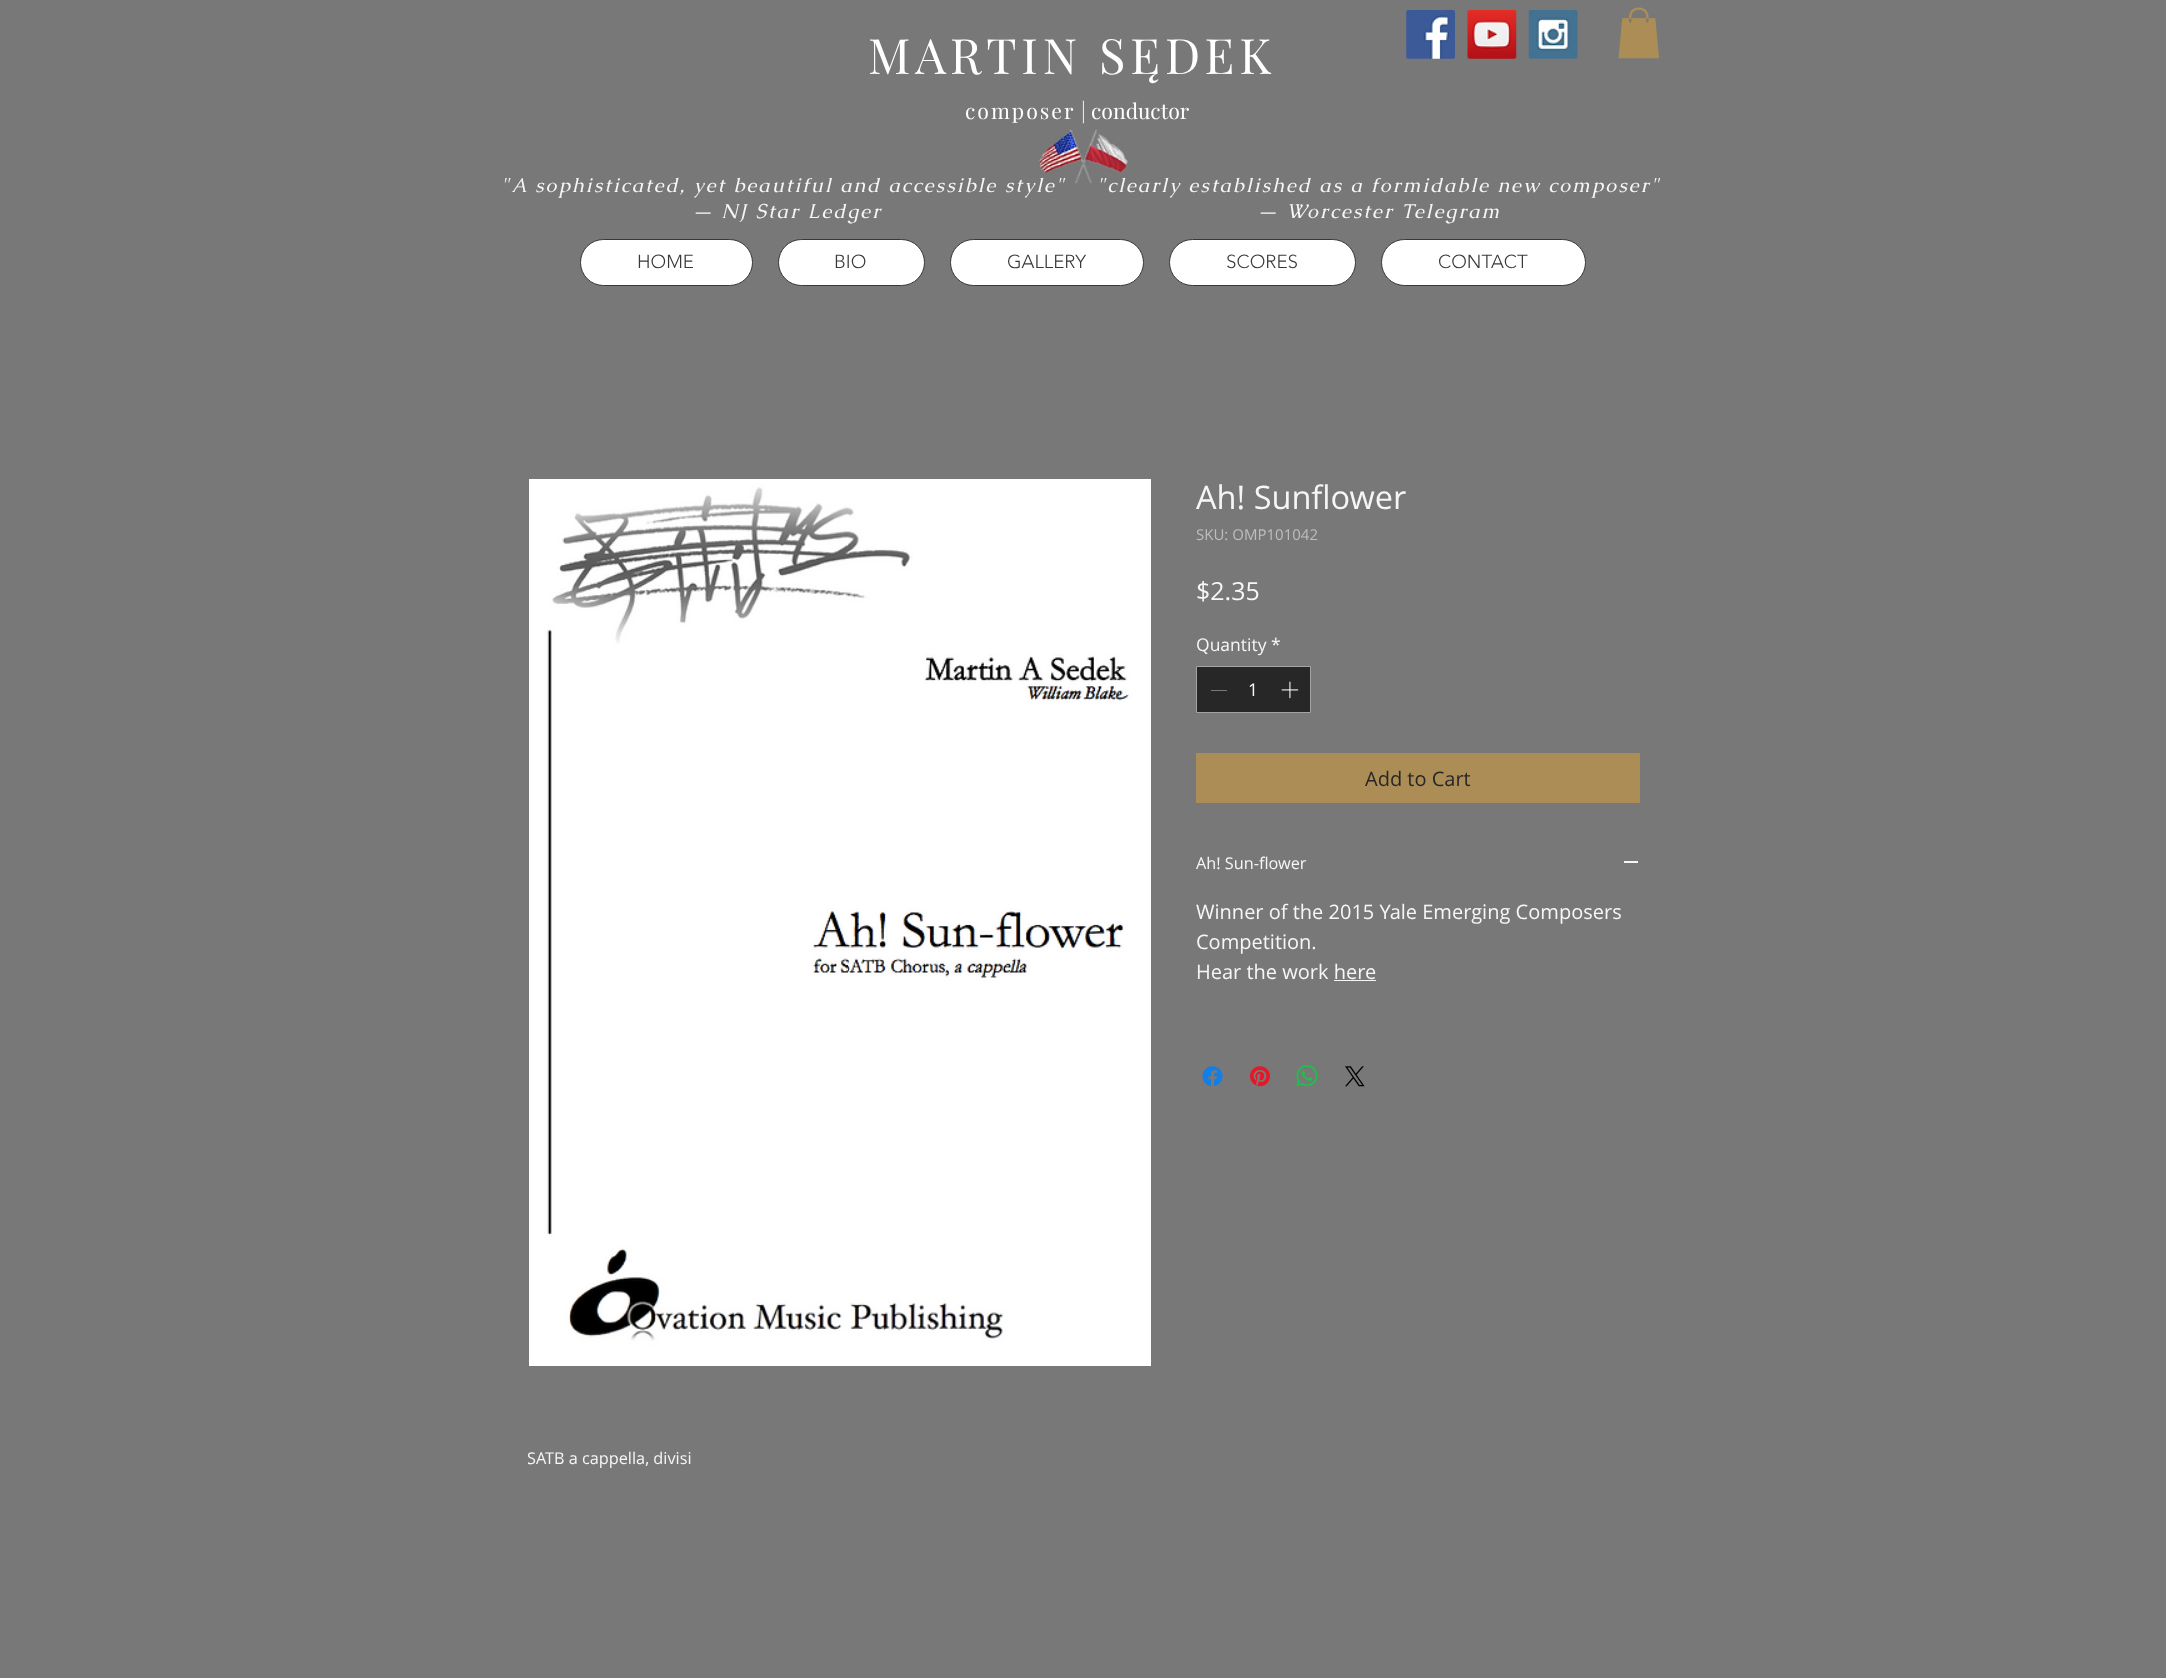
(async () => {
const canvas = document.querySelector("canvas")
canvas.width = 2166
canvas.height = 1678
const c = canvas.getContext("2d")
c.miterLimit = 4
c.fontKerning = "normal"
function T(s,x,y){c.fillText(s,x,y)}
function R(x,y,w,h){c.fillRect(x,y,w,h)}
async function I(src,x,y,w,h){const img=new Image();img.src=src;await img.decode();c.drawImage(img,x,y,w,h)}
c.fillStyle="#787878"
R(0,0,2166,1678)
c.letterSpacing="4.9px"
c.font="48.75px Playfair Display"
c.fillStyle="#fff"
T("MARTIN SĘDEK",868,74)
c.letterSpacing="2px"
c.font="21.25px Playfair Display"
T("composer",965,119)
c.letterSpacing="0px"
T("| conductor",1081,119)
await I("1.png",1406,10,49,49)
await I("2.png",1467,10,50,49)
await I("3.png",1528,10,50,49)
await I("4.png",1618,7,41,52)
c.letterSpacing="2px"
c.font="italic 20px Caudex"
c.fillStyle="#f6f6f6"
T("\"A sophisticated, yet beautiful and accessible style\"",501,192)
T("\"clearly established as a formidable new composer\"",1097,192)
await I("5.png",1038,129,90,55)
T("— NJ Star Ledger",692,218)
T("— Worcester Telegram",1257,218)
c.fillStyle="#fff"
c.beginPath()
c.roundRect(580.5,239.5,172,46,23)
c.fill()
c.strokeStyle="#383838"
c.stroke()
c.letterSpacing="0px"
c.font="300 18.75px 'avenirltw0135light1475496'"
c.fillStyle="#383838"
T("HOME",637,268)
c.fillStyle="#fff"
c.beginPath()
c.roundRect(778.5,239.5,146,46,23)
c.fill()
c.stroke()
c.fillStyle="#383838"
T("BIO",834,268)
c.fillStyle="#fff"
c.beginPath()
c.roundRect(950.5,239.5,193,46,23)
c.fill()
c.stroke()
c.fillStyle="#383838"
T("GALLERY",1007,268)
c.fillStyle="#fff"
c.beginPath()
c.roundRect(1169.5,239.5,186,46,23)
c.fill()
c.stroke()
c.fillStyle="#383838"
T("SCORES",1226,268)
c.fillStyle="#fff"
c.beginPath()
c.roundRect(1381.5,239.5,204,46,23)
c.fill()
c.stroke()
c.fillStyle="#383838"
T("CONTACT",1438,268)
c.font="32.5px Open Sans"
c.fillStyle="#f6f6f6"
T("Ah! Sunflower",1196,509)
c.font="15px Open Sans"
c.fillStyle="#bebebe"
T("SKU: OMP101042",1196,540)
c.font="25px Open Sans"
c.fillStyle="#f6f6f6"
T("$2.35",1196,600)
c.font="17.5px Open Sans"
T("Quantity",1196,651)
T("*",1271,651)
c.fillStyle="#272727"
c.beginPath()
c.rect(1196.5,666.5,114,46)
c.fill()
c.strokeStyle="#a3a3a3"
c.stroke()
c.fillStyle="#777"
R(1211,690,16,1)
c.fillStyle="#f6f6f6"
T("1",1248,696)
await I("6.png",1281,681,18,18)
c.fillStyle="#ac8d56"
R(1196,753,444,50)
c.font="20px Open Sans"
c.fillStyle="#272727"
T("Add to Cart",1365,786)
c.font="16.25px Open Sans"
c.fillStyle="#f6f6f6"
T("Ah! Sun-flower",1196,869)
R(1624,861,14,2)
c.font="20px Open Sans"
T("Winner of the 2015 Yale Emerging Composers",1196,919)
T("Competition.",1196,949)
T("Hear the work here",1196,979)
R(1334,980,42,1)
await I("7.png",1202,1066,21,20)
await I("8.png",1250,1066,20,21)
await I("9.png",1296,1065,22,22)
await I("10.png",1345,1066,20,21)
await I("11.png",529,479,622,887)
c.save()
c.beginPath()
c.rect(528,1443,163,30)
c.clip()
c.font="16.25px Open Sans"
T("SATB a cappella, divisi",527,1464)
c.restore()
})()
